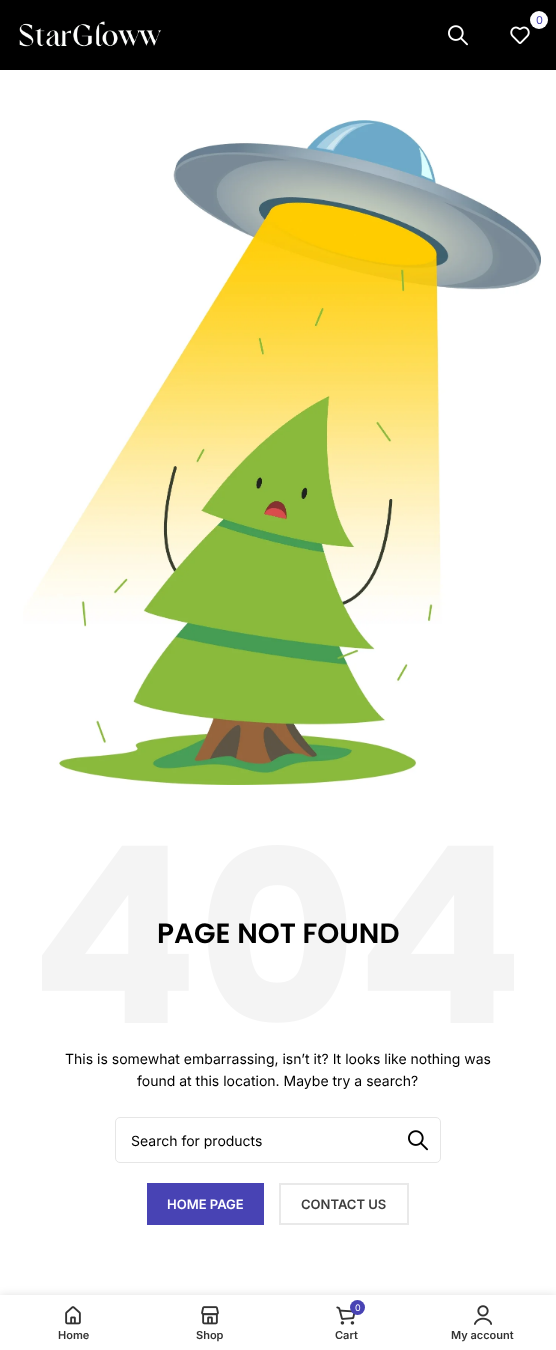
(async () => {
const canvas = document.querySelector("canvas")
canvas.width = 556
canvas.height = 1350
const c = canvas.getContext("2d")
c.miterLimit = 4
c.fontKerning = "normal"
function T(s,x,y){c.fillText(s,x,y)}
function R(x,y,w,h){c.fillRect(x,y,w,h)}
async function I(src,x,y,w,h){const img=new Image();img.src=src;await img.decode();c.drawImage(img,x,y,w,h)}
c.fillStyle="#fff"
R(0,0,556,1350)
c.fillStyle="#000"
R(0,0,556,70)
c.fillStyle="#fff"
c.beginPath()
c.arc(539,20,9,0,7)
c.fill()
c.font="11px Inter"
c.fillStyle="#4843b4"
T("0",536,24)
await I("1.png",510,26,20,18)
await I("2.png",448,25,20,21)
await I("3.png",19,21,143,26)
await I("4.png",23,120,518,665)
await I("5.png",42,845,472,178)
c.font="600 28px Poppins"
c.fillStyle="#000"
T("PAGE NOT FOUND",157,943)
c.font="14px Inter"
T("This is somewhat embarrassing, isn’t it? It looks like nothing was",65,1064)
T("found at this location. Maybe try a search?",137,1086)
c.beginPath()
c.roundRect(115.5,1117.5,325,45,4.5)
c.strokeStyle="#e6e6e6"
c.stroke()
T("Search for products",131,1146)
await I("6.png",408,1130,20,21)
c.fillStyle="#4843b4"
R(147,1183,117,42)
c.font="600 13px Inter"
c.fillStyle="#fff"
T("HOME PAGE",167,1209)
c.strokeStyle="#e9e9e9"
c.lineWidth=2
c.strokeRect(280,1184,128,40)
c.fillStyle="#3e3e3e"
T("CONTACT US",301,1209)
c.fillStyle="#0000001f"
c.filter="blur(4.5px)"
c.beginPath()
c.rect(0,1295,556,55)
c.fill()
c.filter="none"
c.fillStyle="#fff"
R(0,1295,556,55)
await I("7.png",65,1306,16,19)
c.font="600 11px Inter"
c.fillStyle="#333"
T("Home",58,1339)
await I("8.png",201,1306,18,19)
T("Shop",196,1339)
await I("9.png",336,1306,19,19)
c.fillStyle="#4843b4"
c.beginPath()
c.arc(357.5,1307.5,7.5,0,7)
c.fill()
c.font="9px Inter"
c.fillStyle="#fff"
T("0",355,1311)
c.font="600 11px Inter"
c.fillStyle="#333"
T("Cart",335,1339)
await I("10.png",474,1305,18,20)
T("My account",451,1339)
})()
